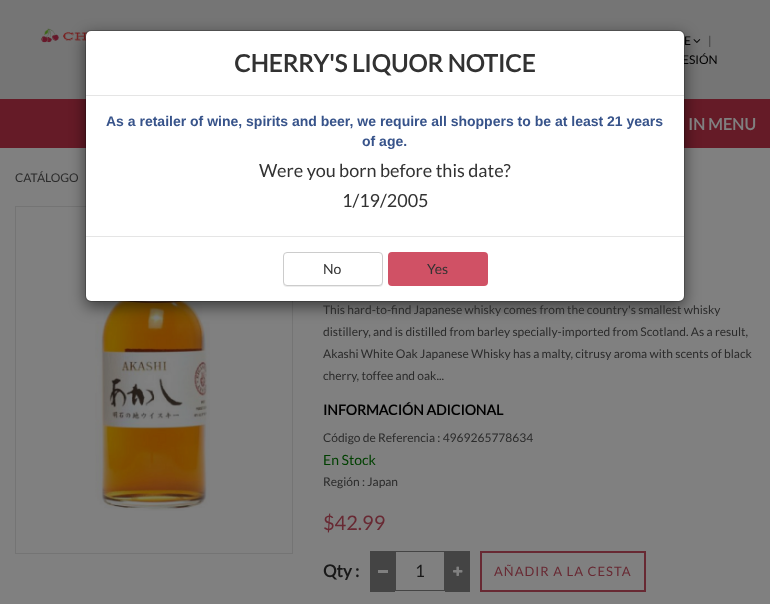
(async () => {
const canvas = document.querySelector("canvas")
canvas.width = 770
canvas.height = 604
const c = canvas.getContext("2d")
c.miterLimit = 4
c.fontKerning = "normal"
function T(s,x,y){c.fillText(s,x,y)}
function R(x,y,w,h){c.fillRect(x,y,w,h)}
function Q(x,y,w,h,r){c.beginPath();c.roundRect(x,y,w,h,r);c.fill()}
async function I(src,x,y,w,h){const img=new Image();img.src=src;await img.decode();c.drawImage(img,x,y,w,h)}
c.fillStyle="#808080"
R(0,0,770,604)
c.font="12px Lato"
c.fillStyle="#2b2b2b"
T("CATÁLOGO",15,182)
c.fillStyle="#757575"
R(0,0,770,99)
await I("1.png",41,28,47,15)
await I("2.png",693,39,8,4)
c.fillStyle="#651b27"
R(0,99,770,49)
c.strokeStyle="#747474"
c.strokeRect(15.5,206.5,277,347)
await I("3.png",95,301,115,210)
c.fillStyle="#00000080"
c.filter="blur(7.5px)"
c.beginPath()
c.roundRect(85,35,600,272,6)
c.fill()
c.filter="none"
c.fillStyle="#000"
T("ESIÓN",682,64)
c.fillStyle="#fff"
Q(86,31,598,270,5)
c.fillStyle="#000"
T("E",684,45)
c.beginPath()
c.roundRect(85.5,30.5,599,271,5.5)
c.strokeStyle="#00000033"
c.stroke()
c.fillStyle="#e5e5e5"
R(86,95,598,1)
c.font="bold 24px Lato"
c.fillStyle="#323232"
T("CHERRY'S LIQUOR NOTICE",234,72)
c.font="bold 14px Liberation Sans"
c.fillStyle="#37538a"
T("As a retailer of wine, spirits and beer, we require all shoppers to be at least 21 years",106,126)
T("of age.",362,146)
c.font="18px Lato"
c.fillStyle="#323232"
T("Were you born before this date?",259,177)
T("1/19/2005",342,207)
c.fillStyle="#e5e5e5"
R(86,236,598,1)
c.fillStyle="#00000012"
c.filter="blur(0.5px)"
c.beginPath()
c.roundRect(283,253,100,34,4)
c.fill()
c.filter="none"
c.fillStyle="#fff"
c.beginPath()
c.roundRect(283.5,252.5,99,33,3.5)
c.fill()
c.strokeStyle="#ccc"
c.stroke()
c.font="14px Lato"
c.fillStyle="#323232"
T("No",323,274)
c.fillStyle="#d05165"
Q(388,252,100,34,4)
c.fillStyle="#323232"
T("Yes",427,274)
c.font="12px Lato"
c.fillStyle="#3a3a3a"
T("|",708,45)
c.font="bold 16px Lato"
c.fillStyle="#808080"
T("IN MENU",688,130)
c.font="12px Lato"
c.fillStyle="#2b2b2b"
T("This hard-to-find Japanese whisky comes from the country's smallest whisky",323,314)
T("distillery, and is distilled from barley specially-imported from Scotland. As a result,",323,336)
T("Akashi White Oak Japanese Whisky has a malty, citrusy aroma with scents of black",323,358)
T("cherry, toffee and oak...",323,380)
c.font="bold 14px Lato"
c.fillStyle="#000"
T("INFORMACIÓN ADICIONAL",323,415)
c.font="12px Lato"
c.fillStyle="#2b2b2b"
T("Código de Referencia : 4969265778634",323,442)
c.font="14px Lato"
c.fillStyle="#004000"
T("En Stock",323,465)
c.font="12px Lato"
c.fillStyle="#2b2b2b"
T("Región : Japan",323,486)
c.font="20px Lato"
c.fillStyle="#682933"
T("$42.99",323,530)
c.font="bold 17px Lato"
c.fillStyle="#191919"
T("Qty :",323,577)
c.fillStyle="#444"
R(370,551,25,41)
c.fillStyle="#808080"
R(378,570,10,3)
c.strokeStyle="#444"
c.strokeRect(395.5,551.5,49,39)
c.font="17px Lato"
c.fillStyle="#191919"
T("1",415,577)
c.fillStyle="#444"
R(445,551,25,41)
await I("4.png",453,566,10,10)
c.strokeStyle="#682933"
c.lineWidth=2
c.strokeRect(481,552,164,39)
c.letterSpacing="1px"
c.font="13px Lato"
c.fillStyle="#682933"
T("AÑADIR A LA CESTA",494,576)
})()
